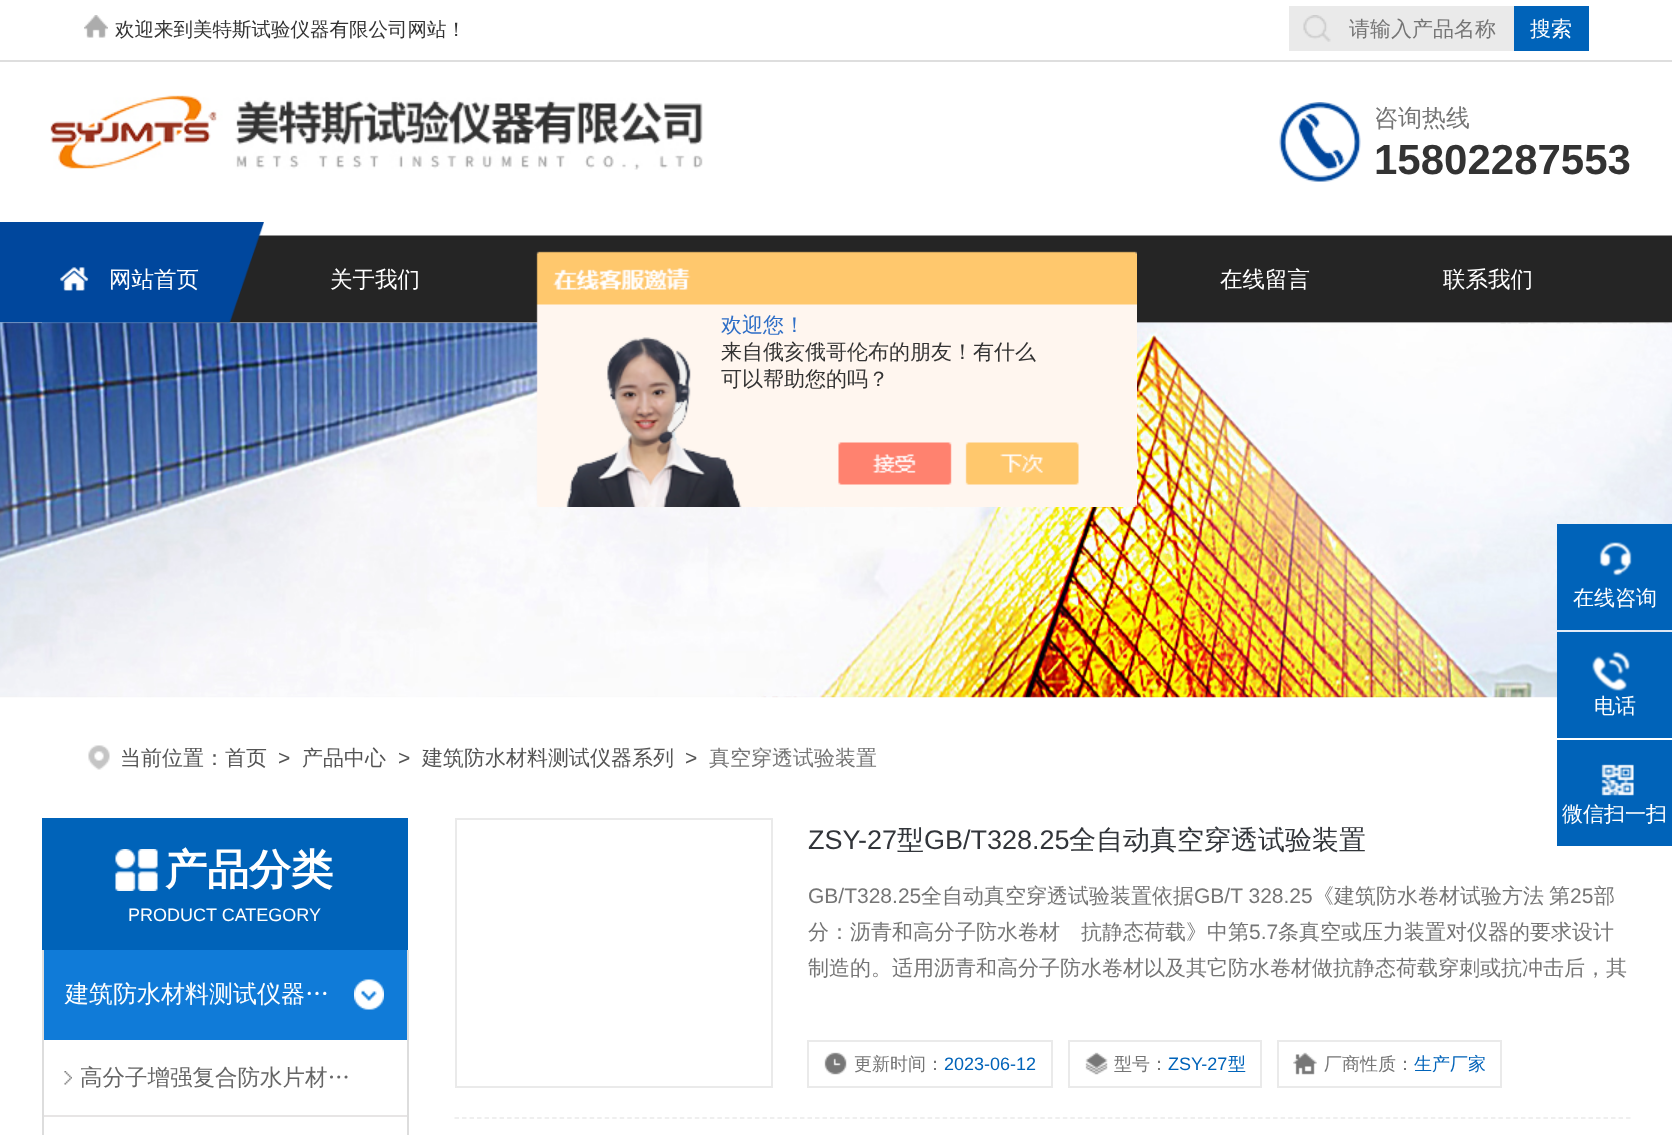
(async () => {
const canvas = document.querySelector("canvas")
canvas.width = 1672
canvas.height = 1135
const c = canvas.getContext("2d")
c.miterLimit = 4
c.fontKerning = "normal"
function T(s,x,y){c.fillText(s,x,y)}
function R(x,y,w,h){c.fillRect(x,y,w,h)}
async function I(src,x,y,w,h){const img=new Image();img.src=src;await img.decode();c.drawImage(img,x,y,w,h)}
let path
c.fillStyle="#fff"
R(0,0,1672,1135)
c.fillStyle="#dedede"
R(0,60,1672,2)
await I("1.png",84,15,24,23)
c.font="500 19.5px WenQuanYi Zen Hei"
c.fillStyle="#333"
T("欢迎来到美特斯试验仪器有限公司网站！",115,36)
c.fillStyle="#eaeaea"
R(1289,6,225,45)
await I("2.png",1303,15,28,27)
c.font="500 21px WenQuanYi Zen Hei"
c.fillStyle="#757575"
T("请输入产品名称",1349,36)
c.fillStyle="#0063b9"
R(1514,6,75,45)
c.fillStyle="#fff"
T("搜索",1530,36)
await I("3.png",50,95,653,75)
await I("4.png",1279,102,82,80)
c.font="500 24px WenQuanYi Zen Hei"
c.fillStyle="#757575"
T("咨询热线",1374,126)
c.font="bold 42px Liberation Sans"
c.fillStyle="#333"
T("15802287553",1374,174)
await I("5.png",0,222,1672,101)
await I("6.png",42,222,222,101)
await I("7.png",60,267,29,24)
c.font="500 22.5px WenQuanYi Zen Hei"
c.fillStyle="#fff"
T("网站首页",109,287)
T("关于我们",330,287)
T("在线留言",1220,287)
T("联系我们",1443,287)
await I("9.png",0,322,1672,376)
await I("8.png",536,251,601,256)
c.font="500 21px WenQuanYi Zen Hei"
c.fillStyle="#2e6ec6"
T("欢迎您！",721,332)
c.fillStyle="#333"
T("来自俄亥俄哥伦布的朋友！有什么",721,359)
T("可以帮助您的吗？",721,386)
await I("10.png",88,745,22,25)
c.fillStyle="#545454"
T("当前位置：首页",120,765)
c.font="21px Liberation Sans"
T(">",278,765)
c.font="500 21px WenQuanYi Zen Hei"
T("产品中心",302,765)
c.font="21px Liberation Sans"
T(">",398,765)
c.font="500 21px WenQuanYi Zen Hei"
T("建筑防水材料测试仪器系列",422,765)
c.font="21px Liberation Sans"
T(">",685,765)
c.font="500 21px WenQuanYi Zen Hei"
c.fillStyle="#757575"
T("真空穿透试验装置",709,765)
c.fillStyle="#0063b9"
R(1557,524,115,106)
await I("11.png",1599,542,33,34)
c.fillStyle="#fff"
T("在线咨询",1573,605)
c.fillStyle="#0063b9"
R(1557,632,115,106)
await I("12.png",1592,651,38,40)
c.fillStyle="#fff"
T("电话",1594,713)
c.fillStyle="#0063b9"
R(1557,740,115,106)
await I("13.png",1601,764,33,32)
c.fillStyle="#fff"
T("微信扫一扫",1562,821)
c.fillStyle="#0063b9"
R(42,818,366,132)
await I("14.png",115,849,43,42)
c.font="bold 42px WenQuanYi Zen Hei"
c.fillStyle="#fff"
T("产品分类",165,884)
c.font="18px Liberation Sans"
T("PRODUCT CATEGORY",128,921)
c.fillStyle="#ddd"
R(407,950,2,185)
R(42,950,2,185)
c.fillStyle="#107bd8"
R(44,950,363,90)
c.font="500 24px WenQuanYi Zen Hei"
c.fillStyle="#fff"
T("建筑防水材料测试仪器…",65,1002)
await I("15.png",354,979,30,31)
await I("16.png",64,1071,8,14)
c.font="500 22.5px WenQuanYi Zen Hei"
c.fillStyle="#666"
T("高分子增强复合防水片材…",80,1085)
c.fillStyle="#e7e5e5"
R(44,1115,363,2)
path = new Path2D("M454.5 1118h1176")
c.strokeStyle="#eaeaea"
c.lineWidth=1.5
c.setLineDash([4.5,3.01])
c.stroke(path)
c.lineWidth=2
c.setLineDash([])
c.strokeRect(456,819,316,268)
c.font="27px Liberation Sans"
c.fillStyle="#32353a"
T("ZSY-27",808,849)
c.font="500 27px WenQuanYi Zen Hei"
T("型",897,849)
c.font="27px Liberation Sans"
T("GB/T328.25",924,849)
c.font="500 27px WenQuanYi Zen Hei"
T("全自动真空穿透试验装置",1069,849)
c.font="21px Liberation Sans"
c.fillStyle="#757575"
T("GB/T328.25",808,903)
c.font="500 21px WenQuanYi Zen Hei"
T("全自动真空穿透试验装置依据",921,903)
c.font="21px Liberation Sans"
T("GB/T 328.25",1194,903)
c.font="500 21px WenQuanYi Zen Hei"
T("《建筑防水卷材试验方法",1313,903)
T("第",1549,903)
c.font="21px Liberation Sans"
T("25",1570,903)
c.font="500 21px WenQuanYi Zen Hei"
T("部",1594,903)
T("分：沥青和高分子防水卷材　抗静态荷载》中第",808,939)
c.font="21px Liberation Sans"
T("5.7",1249,939)
c.font="500 21px WenQuanYi Zen Hei"
T("条真空或压力装置对仪器的要求设计",1278,939)
T("制造的。适用沥青和高分子防水卷材以及其它防水卷材做抗静态荷载穿刺或抗冲击后，其",808,975)
c.strokeRect(808,1041,244,46)
await I("17.png",824,1052,23,23)
c.font="500 18px WenQuanYi Zen Hei"
T("更新时间：",854,1070)
c.font="18px Liberation Sans"
c.fillStyle="#0063b9"
T("2023-06-12",944,1070)
c.strokeRect(1069,1041,192,46)
await I("18.png",1085,1052,23,23)
c.font="500 18px WenQuanYi Zen Hei"
c.fillStyle="#757575"
T("型号：",1114,1070)
c.font="18px Liberation Sans"
c.fillStyle="#0063b9"
T("ZSY-27",1168,1070)
c.font="500 18px WenQuanYi Zen Hei"
T("型",1228,1070)
c.strokeRect(1278,1041,223,46)
await I("19.png",1293,1052,24,23)
c.fillStyle="#757575"
T("厂商性质：",1324,1070)
c.fillStyle="#0063b9"
T("生产厂家",1414,1070)
})()
